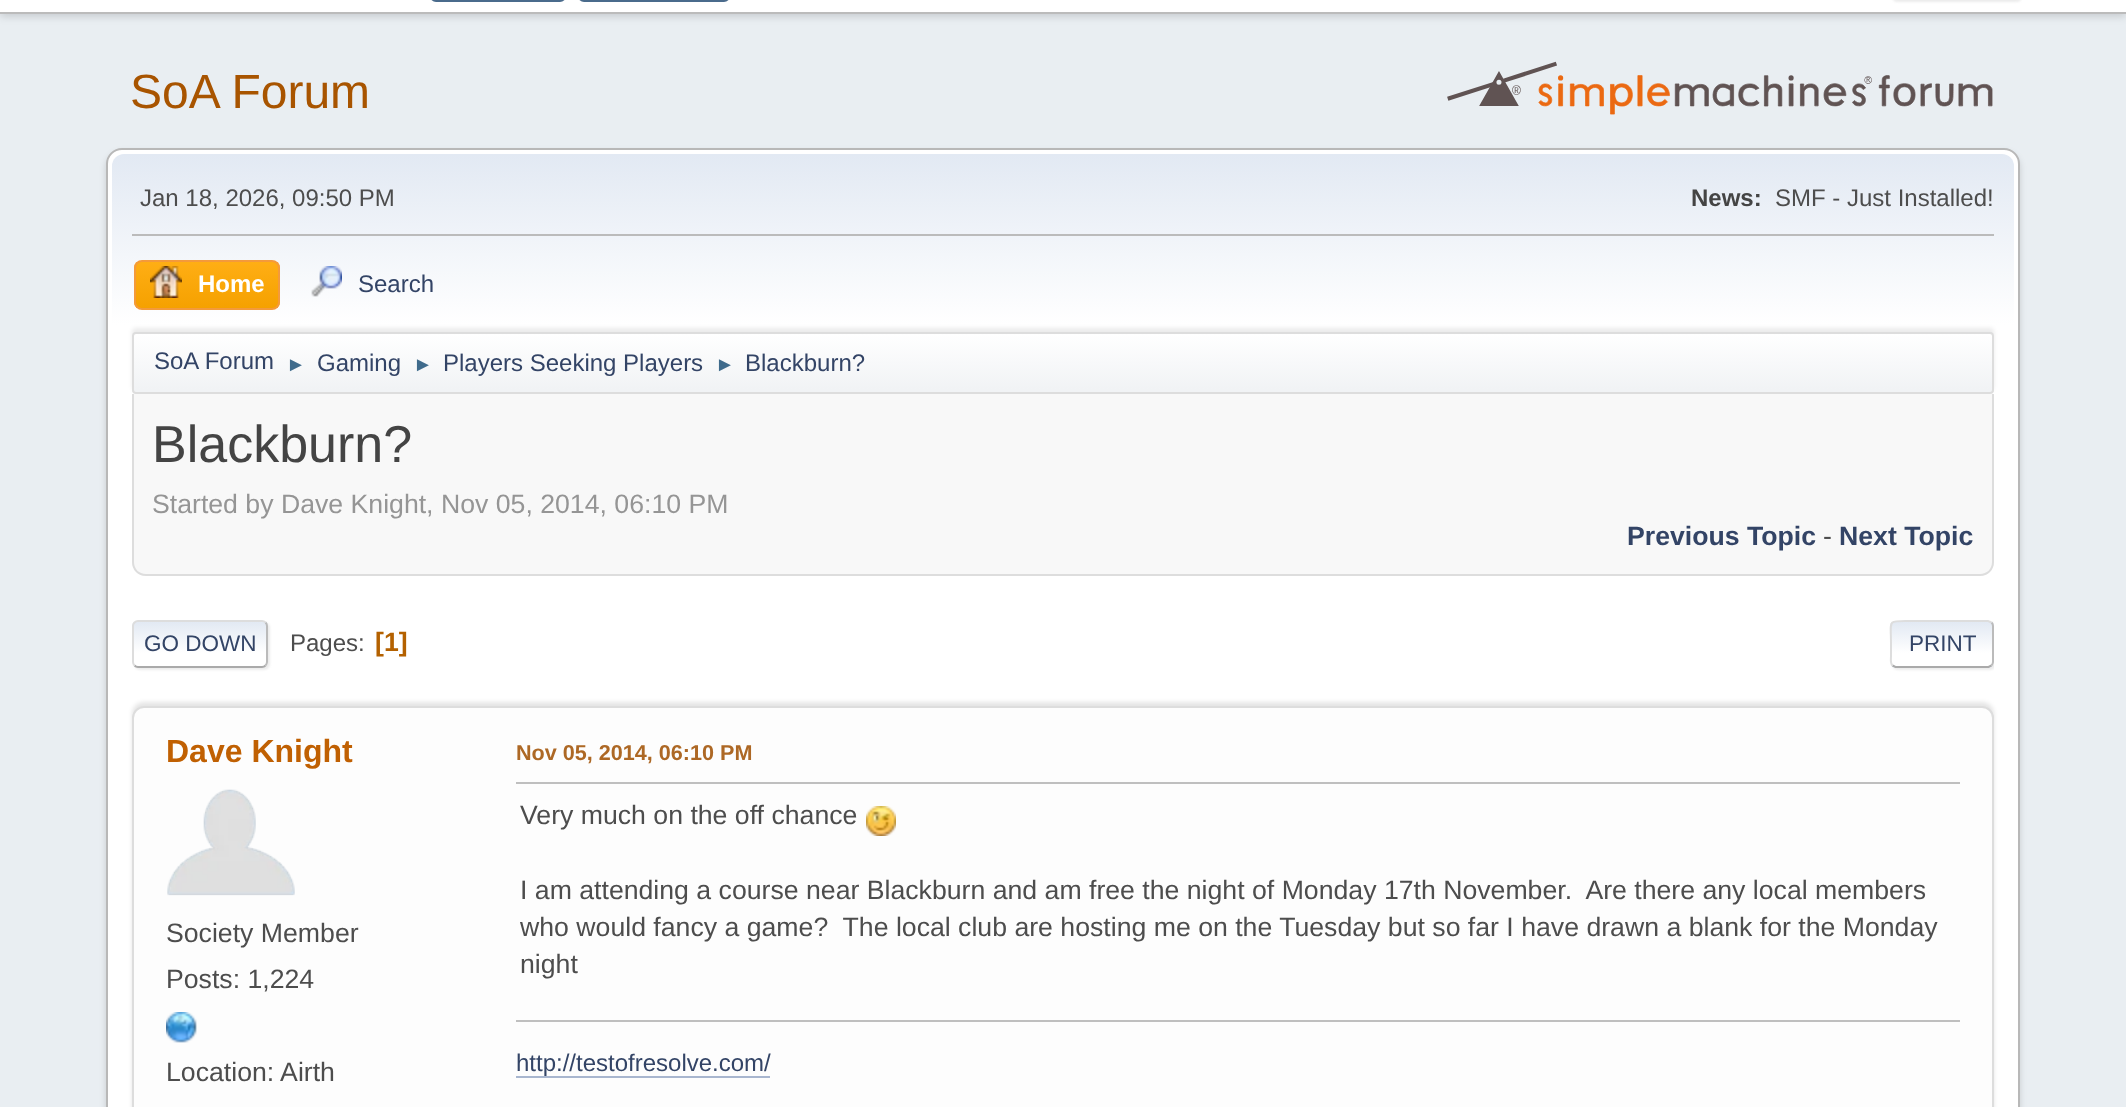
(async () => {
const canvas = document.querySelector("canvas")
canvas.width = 2126
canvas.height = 1107
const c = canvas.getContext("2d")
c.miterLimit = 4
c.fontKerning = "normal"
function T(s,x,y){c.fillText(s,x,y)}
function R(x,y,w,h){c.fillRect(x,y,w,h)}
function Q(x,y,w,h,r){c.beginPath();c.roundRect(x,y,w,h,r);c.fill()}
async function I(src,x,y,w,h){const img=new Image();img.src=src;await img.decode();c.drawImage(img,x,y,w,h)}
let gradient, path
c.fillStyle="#e9eef2"
R(0,0,2126,1107)
c.fillStyle="#00000029"
c.filter="blur(4px)"
c.beginPath()
c.rect(0,-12,2126,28)
c.fill()
c.filter="none"
c.fillStyle="#fff"
R(0,0,2126,12)
c.fillStyle="#bbb"
R(0,12,2126,2)
c.beginPath()
c.roundRect(431,-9,134,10,7)
c.strokeStyle="#4a6b8c"
c.lineWidth=2
c.stroke()
c.beginPath()
c.roundRect(579,-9,150,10,7)
c.stroke()
c.fillStyle="#dddddd91"
c.filter="blur(1px)"
c.beginPath()
c.roundRect(1892,-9,130,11,6)
c.fill()
c.filter="none"
c.font="48px Liberation Sans"
c.fillStyle="#a85400"
T("SoA Forum",130,108)
await I("1.png",1447,61,546,54)
c.fillStyle="#00000024"
c.filter="blur(3px)"
c.beginPath()
c.roundRect(106,152,1914,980,16)
c.fill()
c.filter="none"
c.fillStyle="#fff"
c.beginPath()
c.roundRect(107,149,1912,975,15)
c.fill()
c.strokeStyle="#b8b8b8"
c.stroke()
gradient = c.createLinearGradient(1063,154,1063,398)
gradient.addColorStop(0,"#e2e9f3")
gradient.addColorStop(.7,"#fff")
c.fillStyle = gradient
c.beginPath()
c.roundRect(112,154,1902,244,[12,12,0,0])
c.fill()
c.fillStyle="#bbb"
R(132,234,1862,2)
c.font="24px Liberation Sans"
c.fillStyle="#4d4d4d"
T("Jan 18, 2026, 09:50 PM",140,206)
c.font="bold 24px Liberation Sans"
c.fillStyle="#444"
T("News:",1691,206)
c.font="24px Liberation Sans"
c.fillStyle="#4d4d4d"
T("SMF - Just Installed!",1775,206)
c.save()
c.beginPath()
c.roundRect(134,260,146,50,8)
c.clip()
gradient = c.createLinearGradient(207,262,207,308)
gradient.addColorStop(0,"#ffae14")
gradient.addColorStop(1,"#f5a100")
c.fillStyle = gradient
R(134,262,146,46)
c.restore()
c.beginPath()
c.roundRect(135,261,144,48,7)
c.strokeStyle="#f49a3a"
c.stroke()
await I("2.png",150,266,32,32)
c.font="bold 24px Liberation Sans"
c.fillStyle="#fff"
T("Home",198,292)
await I("3.png",311,266,31,31)
c.font="24px Liberation Sans"
c.fillStyle="#346"
T("Search",358,292)
c.fillStyle="#00000014"
c.filter="blur(2px)"
c.beginPath()
c.roundRect(132,328,1862,62,4)
c.fill()
c.filter="none"
c.save()
c.beginPath()
c.roundRect(132,332,1862,62,4)
c.clip()
gradient = c.createLinearGradient(1063,334,1063,392)
gradient.addColorStop(0,"#fff")
gradient.addColorStop(.95,"#f1f3f5")
c.fillStyle = gradient
R(132,334,1862,58)
c.restore()
c.beginPath()
c.roundRect(133,333,1860,60,3)
c.strokeStyle="#ddd"
c.stroke()
c.fillStyle="#346"
T("SoA Forum",154,369)
c.font="20px Liberation Sans"
c.fillStyle="#3f6b8c"
T("►",286,371)
c.font="24px Liberation Sans"
c.fillStyle="#346"
T("Gaming",317,371)
c.font="20px Liberation Sans"
c.fillStyle="#3f6b8c"
T("►",413,371)
c.font="24px Liberation Sans"
c.fillStyle="#346"
T("Players Seeking Players",443,371)
c.font="20px Liberation Sans"
c.fillStyle="#3f6b8c"
T("►",715,371)
c.font="24px Liberation Sans"
c.fillStyle="#346"
T("Blackburn?",745,371)
c.fillStyle="#f8f8f8"
c.beginPath()
c.roundRect(132,394,1862,182,[0,0,14,14])
c.fill()
c.fillStyle="#ddd"
path = new Path2D("M132 394h1862v168c0 8-6 14-14 14h-1834c-8 0-14-6-14-14zm2 0h1858v168c0 7-5 12-12 12h-1834c-7 0-12-5-12-12z")
c.fill(path,"evenodd")
c.font="52px Liberation Sans"
c.fillStyle="#444"
T("Blackburn?",152,462)
c.font="26.67px Liberation Sans"
c.fillStyle="#959595"
T("Started by Dave Knight, Nov 05, 2014, 06:10 PM",152,513)
c.font="bold 26.67px Liberation Sans"
c.fillStyle="#346"
T("Previous Topic",1627,545)
c.font="26.67px Liberation Sans"
c.fillStyle="#4d4d4d"
T("-",1823,545)
c.font="bold 26.67px Liberation Sans"
c.fillStyle="#346"
T("Next Topic",1839,545)
c.fillStyle="#dddddd91"
c.filter="blur(1px)"
c.beginPath()
c.roundRect(134,622,136,48,6)
c.fill()
c.filter="none"
c.save()
c.beginPath()
c.roundRect(132,620,136,48,6)
c.clip()
gradient = c.createLinearGradient(200,622,200,666)
gradient.addColorStop(0,"#e2e9f3")
gradient.addColorStop(.7,"#fff")
c.fillStyle = gradient
R(132,622,136,44)
c.restore()
path = new Path2D("M265.5 622.5c1 1 1.5 2 1.5 3.5v36c0 1.5-.5 2.5-1.5 3.5")
c.strokeStyle="#bbb"
c.stroke(path)
path = new Path2D("M265.5 665.5c-1 1-2 1.5-3.5 1.5h-124c-1.5 0-2.5-.5-3.5-1.5")
c.strokeStyle="#aaa"
c.stroke(path)
path = new Path2D("M134.5 665.5c-1-1-1.5-2-1.5-3.5v-36c0-1.5 .5-2.5 1.5-3.5c1-1 2-1.5 3.5-1.5h124c1.5 0 2.5 .5 3.5 1.5")
c.strokeStyle="#ddd"
c.stroke(path)
c.font="22.5px Liberation Sans"
c.fillStyle="#346"
T("GO DOWN",144,651)
c.font="24px Liberation Sans"
c.fillStyle="#4d4d4d"
T("Pages:",290,651)
c.font="bold 26.67px Liberation Sans"
c.fillStyle="#b46100"
T("[1]",375,651)
c.save()
c.beginPath()
c.rect(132,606,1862,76)
c.clip()
c.fillStyle="#dddddd91"
c.filter="blur(1px)"
c.beginPath()
c.roundRect(1892,622,104,48,6)
c.fill()
c.filter="none"
c.restore()
c.fillStyle="#fff"
Q(1890,620,104,48,6)
c.save()
c.beginPath()
c.roundRect(1890,620,104,48,6)
c.clip()
gradient = c.createLinearGradient(1942,622,1942,666)
gradient.addColorStop(0,"#e2e9f3")
gradient.addColorStop(.7,"#fff")
c.fillStyle = gradient
R(1890,622,104,44)
gradient = c.createLinearGradient(1942,666,1942,710)
gradient.addColorStop(0,"#e2e9f3")
gradient.addColorStop(.7,"#fff")
c.fillStyle = gradient
R(1890,666,104,2)
c.restore()
path = new Path2D("M1991.5 622.5c1 1 1.5 2 1.5 3.5v36c0 1.5-.5 2.5-1.5 3.5")
c.strokeStyle="#bbb"
c.stroke(path)
path = new Path2D("M1991.5 665.5l-3 1.5h-93l-3-1.5")
c.strokeStyle="#aaa"
c.stroke(path)
path = new Path2D("M1892.5 665.5c-2.5-2.5-1.5-7-1.5-9.5v-12c0-25-4.5-23 20.5-23h76.5l3.5 1.5")
c.strokeStyle="#ddd"
c.stroke(path)
c.font="22.5px Liberation Sans"
c.fillStyle="#346"
T("PRINT",1909,651)
c.fillStyle="#0000001a"
c.filter="blur(2px)"
c.beginPath()
c.roundRect(132,702,1862,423,12)
c.fill()
c.filter="none"
c.fillStyle="#fdfdfd"
c.beginPath()
c.roundRect(133,707,1860,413,11)
c.fill()
c.stroke()
c.font="bold 32px Liberation Sans"
c.fillStyle="#c06002"
T("Dave Knight",166,762)
await I("4.png",167,789,128,107)
c.font="26.67px Liberation Sans"
c.fillStyle="#4d4d4d"
T("Society Member",166,942)
T("Posts: 1,224",166,988)
await I("5.png",166,1012,31,31)
T("Location: Airth",166,1081)
c.font="bold 21.6px Liberation Sans"
c.fillStyle="#ad6825"
T("Nov 05, 2014, 06:10 PM",516,760)
c.fillStyle="#bfbfbf"
R(516,782,1444,2)
c.font="26.67px Liberation Sans"
c.fillStyle="#4d4d4d"
T("Very much on the off chance",520,824)
await I("6.png",866,806,30,30)
T("I am attending a course near Blackburn and am free the night of Monday 17th November.  Are there any local members",520,899)
T("who would fancy a game?  The local club are hosting me on the Tuesday but so far I have drawn a blank for the Monday",520,936)
T("night",520,973)
c.fillStyle="#bfbfbf"
R(516,1020,1444,2)
c.font="24px Liberation Sans"
c.fillStyle="#346"
T("http://testofresolve.com/",516,1071)
c.fillStyle="#a8b6cf"
R(516,1076,254,2)
})()
